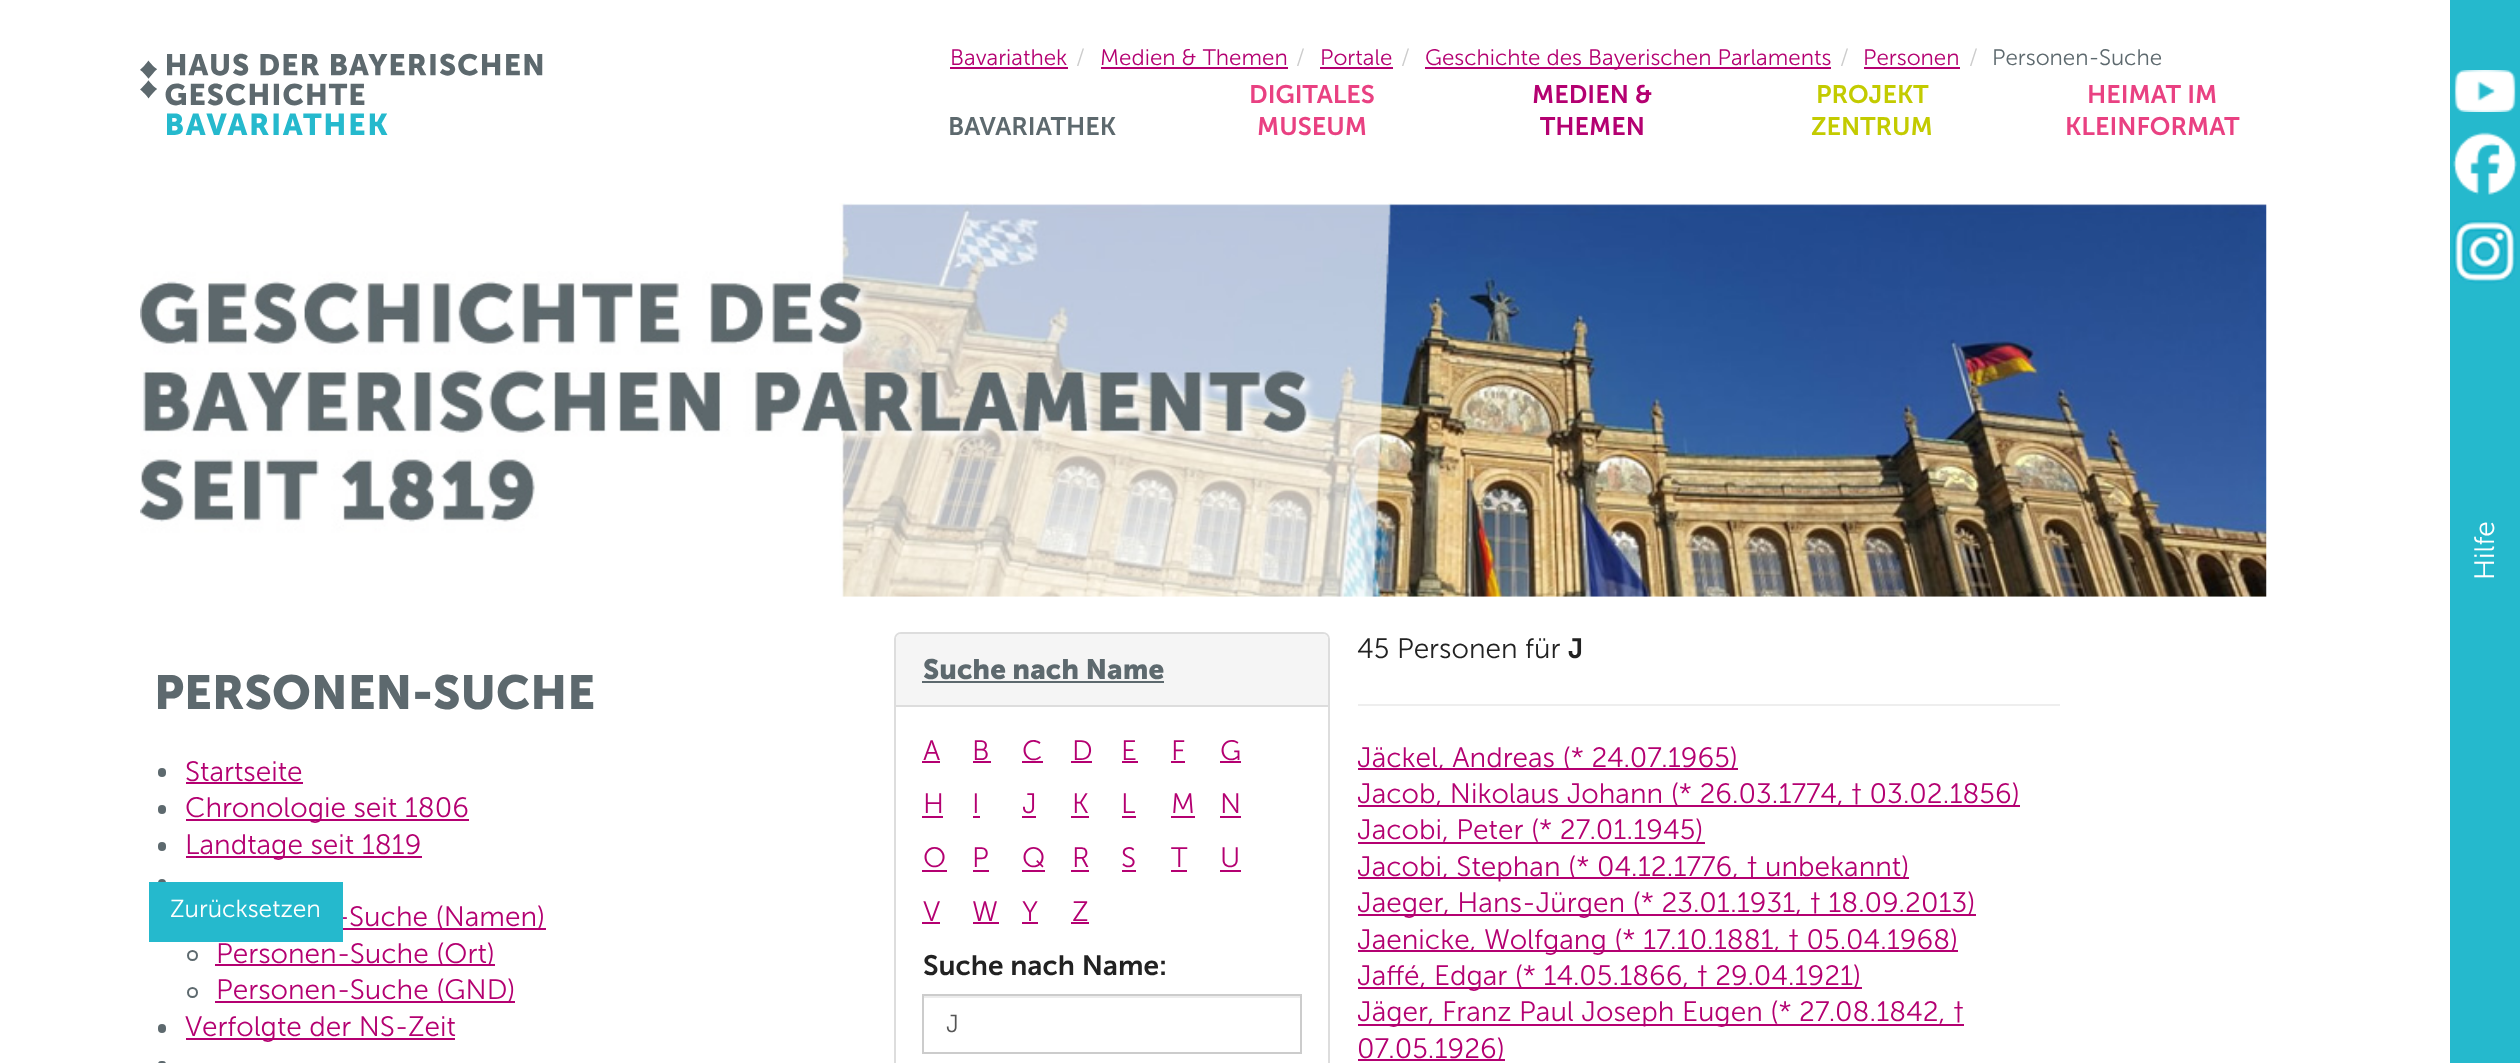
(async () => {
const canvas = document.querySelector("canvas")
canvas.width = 2520
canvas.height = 1063
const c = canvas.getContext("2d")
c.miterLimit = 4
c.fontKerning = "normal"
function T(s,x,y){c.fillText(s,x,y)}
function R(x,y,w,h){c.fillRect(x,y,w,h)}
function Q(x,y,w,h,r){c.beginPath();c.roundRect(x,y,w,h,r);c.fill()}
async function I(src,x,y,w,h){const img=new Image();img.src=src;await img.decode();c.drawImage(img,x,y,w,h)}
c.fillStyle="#fff"
R(0,0,2520,1063)
c.font="300 22.4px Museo"
c.fillStyle="#b40071"
T("Bavariathek",950,65)
R(950,67,118,2)
c.fillStyle="#ccc"
T("/",1076,65)
c.fillStyle="#b40071"
T("Medien & Themen",1100,65)
R(1101,67,187,2)
c.fillStyle="#ccc"
T("/",1296,65)
c.fillStyle="#b40071"
T("Portale",1320,65)
R(1320,67,73,2)
c.fillStyle="#ccc"
T("/",1401,65)
c.fillStyle="#b40071"
R(1425,67,406,2)
T("Geschichte des Bayerischen Parlaments",1425,65)
c.fillStyle="#ccc"
T("/",1840,65)
c.fillStyle="#b40071"
T("Personen",1863,65)
R(1864,67,96,2)
c.fillStyle="#ccc"
T("/",1969,65)
c.fillStyle="#5d696e"
T("Personen-Suche",1992,65)
await I("1.png",140,53,403,82)
c.font="600 25.25px Museo Sans"
T("BAVARIATHEK",948,135)
c.fillStyle="#e94182"
T("DIGITALES",1249,103)
T("MUSEUM",1257,135)
c.fillStyle="#b40071"
T("MEDIEN &",1532,103)
T("THEMEN",1540,135)
c.fillStyle="#c3cb00"
T("PROJEKT",1816,103)
T("ZENTRUM",1811,135)
c.fillStyle="#e94182"
T("HEIMAT IM",2087,103)
T("KLEINFORMAT",2065,135)
c.fillStyle="#25b9cd"
R(2450,0,70,1063)
await I("2.png",2454,70,62,42)
await I("3.png",2453,132,64,63)
await I("4.png",2453,220,64,64)
c.font="300 28px Museo"
c.fillStyle="#fff"
c.save()
c.translate(2494,580)
c.rotate(-90 * Math.PI / 180)
c.fillText("Hilfe",0,0)
c.restore()
await I("5.png",140,203,2127,394)
c.beginPath()
c.roundRect(895,633,434,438,6)
c.strokeStyle="#ddd"
c.lineWidth=2
c.stroke()
c.fillStyle="#f5f5f5"
c.beginPath()
c.roundRect(896,634,432,71,[5,5,0,0])
c.fill()
c.font="bold 28px Museo"
c.fillStyle="#5d696e"
T("Suche nach Name",923,679)
R(922,681,242,2)
c.fillStyle="#ddd"
R(896,705,432,2)
c.font="300 28px Museo"
c.fillStyle="#b40071"
T("A",923,760)
R(922,761,18,2)
T("B",972,760)
R(973,761,18,2)
T("C",1022,760)
R(1022,761,21,2)
T("D",1072,760)
R(1071,761,21,2)
T("E",1121,760)
R(1122,761,16,2)
T("F",1171,760)
R(1171,761,14,2)
T("G",1220,760)
R(1220,761,21,2)
T("H",923,813)
R(922,816,21,2)
T("I",972,813)
R(973,816,7,2)
T("J",1022,813)
R(1022,816,14,2)
T("K",1072,813)
R(1071,816,18,2)
T("L",1121,813)
R(1122,816,14,2)
T("M",1171,813)
R(1171,816,24,2)
T("N",1220,813)
R(1220,816,21,2)
T("O",923,867)
R(922,870,25,2)
T("P",972,867)
R(973,870,16,2)
T("Q",1022,867)
R(1022,870,23,2)
T("R",1072,867)
R(1071,870,18,2)
T("S",1121,867)
R(1122,870,14,2)
T("T",1171,867)
R(1171,870,16,2)
T("U",1220,867)
R(1220,870,21,2)
c.fillStyle="#5d696e"
c.beginPath()
c.arc(162,883,4,0,7)
c.fill()
c.fillStyle="#b40071"
R(343,928,203,2)
T("-Suche (Namen)",336,926)
c.fillStyle="#25b9cd"
R(149,882,194,60)
c.font="300 24.5px Museo"
c.fillStyle="#fff"
T("Zurücksetzen",170,917)
c.font="600 28px Museo Sans"
c.fillStyle="#222"
T("Suche nach Name:",923,975)
c.fillStyle="#ececec"
R(924,996,376,2)
c.strokeStyle="#ccc"
c.strokeRect(923,995,378,58)
c.font="300 24.5px Museo"
c.fillStyle="#555"
T("J",946,1032)
c.font="300 28px Museo"
c.fillStyle="#b40071"
T("V",923,921)
R(922,922,18,2)
T("W",972,921)
R(973,922,26,2)
T("Y",1022,921)
R(1022,922,16,2)
T("Z",1072,921)
R(1071,922,18,2)
c.fillStyle="#222"
T("45 Personen für",1357,658)
c.font="600 28px Museo Sans"
T("J",1568,658)
c.fillStyle="#eee"
R(1358,704,702,2)
c.fillStyle="#b40071"
R(1358,768,380,2)
c.font="300 28px Museo"
T("Jäckel, Andreas (* 24.07.1965)",1357,767)
R(1358,805,662,2)
T("Jacob, Nikolaus Johann (* 26.03.1774, † 03.02.1856)",1357,803)
T("Jacobi, Peter (* 27.01.1945)",1357,839)
R(1358,842,347,2)
R(1358,877,551,2)
T("Jacobi, Stephan (* 04.12.1776, † unbekannt)",1357,876)
R(1358,914,618,2)
T("Jaeger, Hans-Jürgen (* 23.01.1931, † 18.09.2013)",1357,912)
R(1358,950,600,2)
T("Jaenicke, Wolfgang (* 17.10.1881, † 05.04.1968)",1357,949)
R(1358,987,504,2)
T("Jaffé, Edgar (* 14.05.1866, † 29.04.1921)",1357,985)
R(1358,1024,606,2)
T("Jäger, Franz Paul Joseph Eugen (* 27.08.1842, †",1357,1021)
R(1358,1059,147,2)
T("07.05.1926)",1357,1058)
c.font="bold 47.5px Museo"
c.fillStyle="#5d696e"
T("PERSONEN-SUCHE",154,709)
Q(158,768,8,9,4)
c.font="300 28px Museo"
c.fillStyle="#b40071"
T("Startseite",185,781)
R(186,782,117,2)
c.fillStyle="#5d696e"
Q(158,805,8,9,4)
c.fillStyle="#b40071"
R(186,819,283,2)
T("Chronologie seit 1806",185,817)
c.fillStyle="#5d696e"
Q(158,842,8,9,4)
c.fillStyle="#b40071"
R(186,856,236,2)
T("Landtage seit 1819",185,854)
c.beginPath()
c.arc(192.5,955.5,4.5,0,7)
c.strokeStyle="#5d696e"
c.stroke()
R(215,964,280,2)
T("Personen-Suche (Ort)",216,963)
c.beginPath()
c.arc(192.5,992.5,4.5,0,7)
c.stroke()
R(215,1001,300,2)
T("Personen-Suche (GND)",216,999)
c.fillStyle="#5d696e"
Q(158,1024,8,9,4)
c.fillStyle="#b40071"
R(186,1038,269,2)
T("Verfolgte der NS-Zeit",185,1036)
c.fillStyle="#5d696e"
Q(158,1061,8,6,4)
})()
